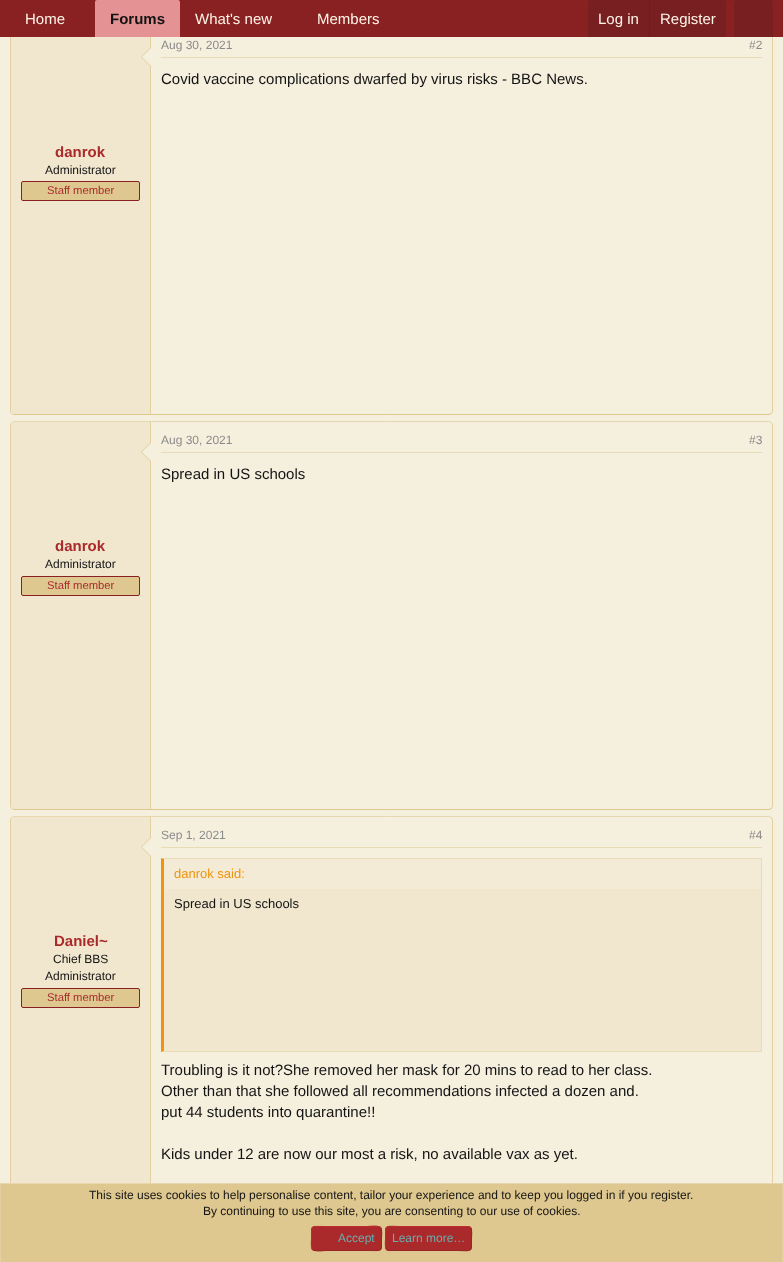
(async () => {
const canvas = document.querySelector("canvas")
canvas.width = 783
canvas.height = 1262
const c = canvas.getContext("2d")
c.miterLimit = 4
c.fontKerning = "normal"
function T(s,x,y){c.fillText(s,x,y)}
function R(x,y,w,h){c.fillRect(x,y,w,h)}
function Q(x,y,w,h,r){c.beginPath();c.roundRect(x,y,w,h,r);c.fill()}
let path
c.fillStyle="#f5efde"
R(0,0,783,1262)
path = new Path2D("M771.5 27.5l1 2.5v381l-1 2.5")
c.strokeStyle="#e3cf9f"
c.stroke(path)
path = new Path2D("M771.5 413.5l-2.5 1h-755l-2.5-1")
c.strokeStyle="#dec88f"
c.stroke(path)
path = new Path2D("M11.5 413.5l-1-2.5v-381l1-2.5")
c.strokeStyle="#e3cf9f"
c.stroke(path)
c.fillStyle="#f1e7ce"
c.beginPath()
c.roundRect(11,27,140,387,[3,0,0,3])
c.fill()
c.fillStyle="#892123"
R(0,0,783,37)
c.font="15px Liberation Sans"
c.fillStyle="#fef4e7"
T("Home",25,24)
c.fillStyle="#e49293"
c.beginPath()
c.roundRect(95,0,85,37,[2,2,0,0])
c.fill()
c.font="bold 15px Liberation Sans"
c.fillStyle="#141414"
T("Forums",110,24)
c.font="15px Liberation Sans"
c.fillStyle="#fef4e7"
T("What's new",195,24)
T("Members",317,24)
c.fillStyle="#771f21"
c.beginPath()
c.roundRect(588,0,138,37,[4,4,0,0])
c.fill()
c.fillStyle="#fef4e7"
T("Log in",598,24)
c.fillStyle="#681d1f"
R(649,0,1,37)
c.fillStyle="#fef4e7"
T("Register",660,24)
c.fillStyle="#771f21"
c.beginPath()
c.roundRect(734,0,39,37,[4,4,0,0])
c.fill()
c.fillStyle="#eadbb7"
R(161,57,601,1)
c.font="12px Liberation Sans"
c.fillStyle="#8a8a8a"
T("Aug 30, 2021",161,49)
T("#2",749,49)
c.font="15px Liberation Sans"
c.fillStyle="#141414"
T("Covid vaccine complications dwarfed by virus risks - BBC News.",161,84)
c.fillStyle="#e3cf9f"
R(150,37,1,377)
path = new Path2D("M151 47v20l-10-10z")
c.fill(path)
c.fillStyle="#f5efde"
path = new Path2D("M151 48v18l-9-9z")
c.fill(path)
c.font="bold 15px Liberation Sans"
c.fillStyle="#aa2a2c"
T("danrok",55,157)
c.font="12px Liberation Sans"
c.fillStyle="#141414"
T("Administrator",45,174)
c.fillStyle="#dec88f"
c.beginPath()
c.roundRect(21.5,181.5,118,19,1.5)
c.fill()
c.strokeStyle="#892123"
c.stroke()
c.font="11.25px Liberation Sans"
c.fillStyle="#aa2a2c"
T("Staff member",47,194)
path = new Path2D("M11.5 422.5l2.5-1h755l2.5 1")
c.strokeStyle="#e7d7af"
c.stroke(path)
path = new Path2D("M771.5 422.5l1 2.5v381l-1 2.5")
c.strokeStyle="#e3cf9f"
c.stroke(path)
path = new Path2D("M771.5 808.5l-2.5 1h-755l-2.5-1")
c.strokeStyle="#dec88f"
c.stroke(path)
path = new Path2D("M11.5 808.5l-1-2.5v-381l1-2.5")
c.strokeStyle="#e3cf9f"
c.stroke(path)
c.fillStyle="#eadbb7"
R(161,452,601,1)
c.font="12px Liberation Sans"
c.fillStyle="#8a8a8a"
T("Aug 30, 2021",161,444)
T("#3",749,444)
c.font="15px Liberation Sans"
c.fillStyle="#141414"
T("Spread in US schools",161,479)
c.fillStyle="#f1e7ce"
c.beginPath()
c.roundRect(11,422,140,387,[3,0,0,3])
c.fill()
c.fillStyle="#e3cf9f"
R(150,422,1,387)
path = new Path2D("M151 442v20l-10-10z")
c.fill(path)
c.fillStyle="#f5efde"
path = new Path2D("M151 443v18l-9-9z")
c.fill(path)
c.font="bold 15px Liberation Sans"
c.fillStyle="#aa2a2c"
T("danrok",55,551)
c.font="12px Liberation Sans"
c.fillStyle="#141414"
T("Administrator",45,568)
c.fillStyle="#dec88f"
c.beginPath()
c.roundRect(21.5,576.5,118,19,1.5)
c.fill()
c.strokeStyle="#892123"
c.stroke()
c.font="11.25px Liberation Sans"
c.fillStyle="#aa2a2c"
T("Staff member",47,589)
path = new Path2D("M11.5 817.5l2.5-1h755l2.5 1")
c.strokeStyle="#e7d7af"
c.stroke(path)
path = new Path2D("M771.5 817.5l1 2.5v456l-1 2.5")
c.strokeStyle="#e3cf9f"
c.stroke(path)
path = new Path2D("M11.5 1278.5l-1-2.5v-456l1-2.5")
c.stroke(path)
c.fillStyle="#f1e7ce"
path = new Path2D("M14 817h137v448h-137c-1.5 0-3-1.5-3-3v-442c0-1.5 1.5-3 3-3z")
c.fill(path)
c.fillStyle="#e3cf9f"
R(150,817,1,366)
path = new Path2D("M151 837v20l-10-10z")
c.fill(path)
c.fillStyle="#f5efde"
path = new Path2D("M151 838v18l-9-9z")
c.fill(path)
c.font="bold 15px Liberation Sans"
c.fillStyle="#aa2a2c"
T("Daniel~",54,946)
c.font="12px Liberation Sans"
c.fillStyle="#141414"
T("Chief BBS",53,963)
T("Administrator",45,980)
c.fillStyle="#dec88f"
c.beginPath()
c.roundRect(21.5,988.5,118,19,1.5)
c.fill()
c.strokeStyle="#892123"
c.stroke()
c.font="11.25px Liberation Sans"
c.fillStyle="#aa2a2c"
T("Staff member",47,1001)
c.fillStyle="#eadbb7"
R(161,847,601,1)
c.font="12px Liberation Sans"
c.fillStyle="#8a8a8a"
T("Sep 1, 2021",161,839)
T("#4",749,839)
c.fillStyle="#f1e7ce"
R(164,889,597,162)
c.fillStyle="#eadbb7"
path = new Path2D("M161 858h601l-1 1h-597z")
c.fill(path)
R(761,858,1,194)
path = new Path2D("M762 1052h-601l3-1h597z")
c.fill(path)
c.fillStyle="#f2930d"
path = new Path2D("M161 1052v-194l3 1v192z")
c.fill(path)
c.fillStyle="#f3ebd6"
R(164,859,597,30)
c.font="13px Liberation Sans"
c.fillStyle="#f2930d"
T("danrok said:",174,878)
c.fillStyle="#141414"
T("Spread in US schools",174,908)
c.font="15px Liberation Sans"
T("Troubling is it not?She removed her mask for 20 mins to read to her class.",161,1075)
T("Other than that she followed all recommendations infected a dozen and.",161,1096)
T("put 44 students into quarantine!!",161,1117)
T("Kids under 12 are now our most a risk, no available vax as yet.",161,1159)
c.fillStyle="#dec88f"
R(1,1184,781,77)
c.fillStyle="#e7d7af"
R(0,1183,783,1)
c.fillStyle="#e3cf9f"
R(782,1183,1,79)
c.fillStyle="#dec88f"
R(0,1261,783,1)
c.fillStyle="#e3cf9f"
R(0,1183,1,79)
c.font="12px Liberation Sans"
c.fillStyle="#141414"
T("This site uses cookies to help personalise content, tailor your experience and to keep you logged in if you register.",89,1199)
T("By continuing to use this site, you are consenting to our use of cookies.",203,1215)
c.fillStyle="#aa2a2c"
Q(311,1226,71,25,4)
path = new Path2D("M380.5 1227.5c2 2.5 1 8.5 1 11c0 14 1 12-14 12h-42c-1 0-10.5 1.5-13-1")
c.strokeStyle="#962527"
c.stroke(path)
path = new Path2D("M312.5 1249.5c-2-2.5-1-8.5-1-11c0-14-1-12 14-12h42c1 0 10.5-1.5 13 1")
c.strokeStyle="#bf2f31"
c.stroke(path)
c.fillStyle="#6badab"
T("Accept",338,1242)
c.fillStyle="#aa2a2c"
Q(385,1226,87,25,4)
path = new Path2D("M470.5 1227.5c2 2.5 1 8.5 1 11c0 15 .5 12-16.5 12h-66l-2.5-1")
c.strokeStyle="#962527"
c.stroke(path)
path = new Path2D("M386.5 1249.5c-2-2.5-1-8.5-1-11c0-15-.5-12 16.5-12h66l2.5 1")
c.strokeStyle="#bf2f31"
c.stroke(path)
c.fillStyle="#6badab"
T("Learn more…",392,1242)
})()
